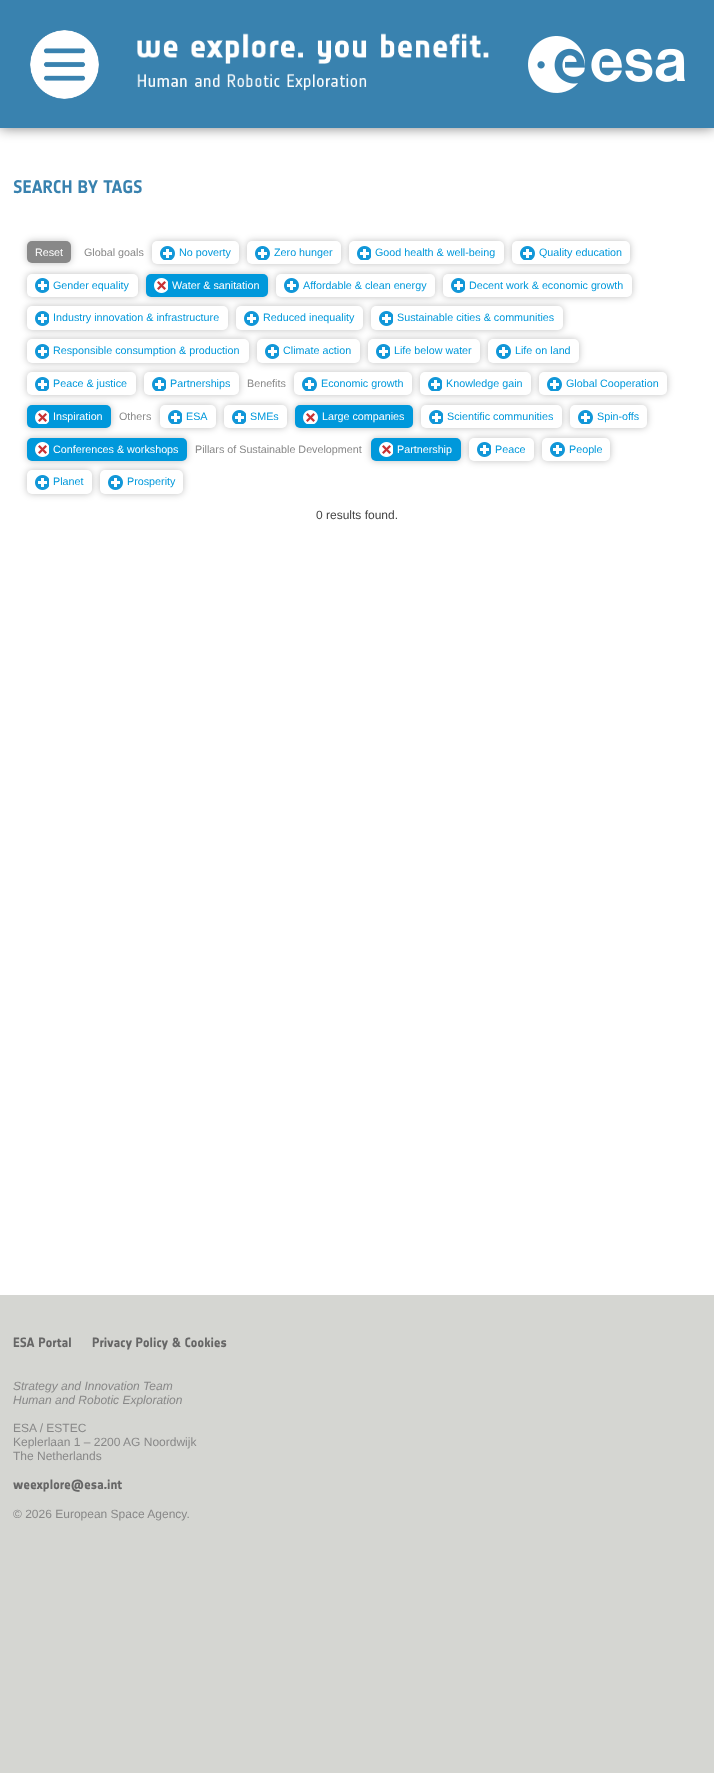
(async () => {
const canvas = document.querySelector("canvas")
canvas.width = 714
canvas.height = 1773
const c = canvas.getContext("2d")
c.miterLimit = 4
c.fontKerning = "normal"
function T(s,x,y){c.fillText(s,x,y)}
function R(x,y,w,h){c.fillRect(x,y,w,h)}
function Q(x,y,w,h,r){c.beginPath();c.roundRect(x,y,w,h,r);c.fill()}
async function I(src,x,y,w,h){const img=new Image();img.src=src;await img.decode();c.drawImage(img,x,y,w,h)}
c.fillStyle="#d5d6d2"
R(0,0,714,1773)
c.fillStyle="#fff"
R(0,128,714,1167)
c.fillStyle="#00000080"
c.filter="blur(6.5px)"
c.beginPath()
c.rect(0,0,714,128)
c.fill()
c.filter="none"
c.fillStyle="#3982af"
R(0,0,714,128)
await I("1.png",30,30,69,69)
await I("2.png",137,33,352,58)
await I("3.png",528,36,157,57)
c.font="bold 18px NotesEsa"
T("SEARCH BY TAGS",13,193)
c.fillStyle="#00000040"
c.filter="blur(3.5px)"
c.beginPath()
c.roundRect(27,241,44,22,5)
c.fill()
c.filter="none"
c.fillStyle="#888"
Q(27,241,44,22,5)
c.font="10.75px Liberation Sans"
c.fillStyle="#fff"
T("Reset",35,256)
c.fillStyle="#888"
T("Global goals",84,256)
c.fillStyle="#00000040"
c.filter="blur(3.5px)"
c.beginPath()
c.roundRect(152,241,87,23,5)
c.fill()
c.filter="none"
c.fillStyle="#fff"
Q(152,241,87,23,5)
await I("4.png",160,246,15,14)
c.fillStyle="#0098db"
T("No poverty",179,256)
c.fillStyle="#00000040"
c.filter="blur(3.5px)"
c.beginPath()
c.roundRect(247,241,94,23,5)
c.fill()
c.filter="none"
c.fillStyle="#fff"
Q(247,241,94,23,5)
await I("4.png",255,246,15,14)
c.fillStyle="#0098db"
T("Zero hunger",274,256)
c.fillStyle="#00000040"
c.filter="blur(3.5px)"
c.beginPath()
c.roundRect(349,241,155,23,5)
c.fill()
c.filter="none"
c.fillStyle="#fff"
Q(349,241,155,23,5)
await I("5.png",357,246,14,14)
c.fillStyle="#0098db"
T("Good health & well-being",375,256)
c.fillStyle="#00000040"
c.filter="blur(3.5px)"
c.beginPath()
c.roundRect(512,241,118,23,5)
c.fill()
c.filter="none"
c.fillStyle="#fff"
Q(512,241,118,23,5)
await I("4.png",520,246,15,14)
c.fillStyle="#0098db"
T("Quality education",539,256)
c.fillStyle="#00000040"
c.filter="blur(3.5px)"
c.beginPath()
c.roundRect(27,274,111,23,5)
c.fill()
c.filter="none"
c.fillStyle="#fff"
Q(27,274,111,23,5)
await I("6.png",35,278,14,15)
c.fillStyle="#0098db"
T("Gender equality",53,289)
c.fillStyle="#00000040"
c.filter="blur(3.5px)"
c.beginPath()
c.roundRect(146,274,122,23,5)
c.fill()
c.filter="none"
c.fillStyle="#0098db"
Q(146,274,122,23,5)
await I("7.png",154,278,14,15)
c.fillStyle="#fff"
T("Water & sanitation",172,289)
c.fillStyle="#00000040"
c.filter="blur(3.5px)"
c.beginPath()
c.roundRect(276,274,159,23,5)
c.fill()
c.filter="none"
c.fillStyle="#fff"
Q(276,274,159,23,5)
await I("8.png",284,278,15,15)
c.fillStyle="#0098db"
T("Affordable & clean energy",303,289)
c.fillStyle="#00000040"
c.filter="blur(3.5px)"
c.beginPath()
c.roundRect(443,274,189,23,5)
c.fill()
c.filter="none"
c.fillStyle="#fff"
Q(443,274,189,23,5)
await I("6.png",451,278,14,15)
c.fillStyle="#0098db"
T("Decent work & economic growth",469,289)
c.fillStyle="#00000040"
c.filter="blur(3.5px)"
c.beginPath()
c.roundRect(27,306,201,24,5)
c.fill()
c.filter="none"
c.fillStyle="#fff"
Q(27,306,201,24,5)
await I("6.png",35,311,14,15)
c.fillStyle="#0098db"
T("Industry innovation & infrastructure",53,321)
c.fillStyle="#00000040"
c.filter="blur(3.5px)"
c.beginPath()
c.roundRect(236,306,127,24,5)
c.fill()
c.filter="none"
c.fillStyle="#fff"
Q(236,306,127,24,5)
await I("8.png",244,311,15,15)
c.fillStyle="#0098db"
T("Reduced inequality",263,321)
c.fillStyle="#00000040"
c.filter="blur(3.5px)"
c.beginPath()
c.roundRect(371,306,192,24,5)
c.fill()
c.filter="none"
c.fillStyle="#fff"
Q(371,306,192,24,5)
await I("6.png",379,311,14,15)
c.fillStyle="#0098db"
T("Sustainable cities & communities",397,321)
c.fillStyle="#00000040"
c.filter="blur(3.5px)"
c.beginPath()
c.roundRect(27,339,222,24,5)
c.fill()
c.filter="none"
c.fillStyle="#fff"
Q(27,339,222,24,5)
await I("6.png",35,344,14,15)
c.fillStyle="#0098db"
T("Responsible consumption & production",53,354)
c.fillStyle="#00000040"
c.filter="blur(3.5px)"
c.beginPath()
c.roundRect(257,339,103,24,5)
c.fill()
c.filter="none"
c.fillStyle="#fff"
Q(257,339,103,24,5)
await I("6.png",265,344,14,15)
c.fillStyle="#0098db"
T("Climate action",283,354)
c.fillStyle="#00000040"
c.filter="blur(3.5px)"
c.beginPath()
c.roundRect(368,339,112,24,5)
c.fill()
c.filter="none"
c.fillStyle="#fff"
Q(368,339,112,24,5)
await I("6.png",376,344,14,15)
c.fillStyle="#0098db"
T("Life below water",394,354)
c.fillStyle="#00000040"
c.filter="blur(3.5px)"
c.beginPath()
c.roundRect(488,339,91,24,5)
c.fill()
c.filter="none"
c.fillStyle="#fff"
Q(488,339,91,24,5)
await I("8.png",496,344,15,15)
c.fillStyle="#0098db"
T("Life on land",515,354)
c.fillStyle="#00000040"
c.filter="blur(3.5px)"
c.beginPath()
c.roundRect(27,372,109,23,5)
c.fill()
c.filter="none"
c.fillStyle="#fff"
Q(27,372,109,23,5)
await I("5.png",35,377,14,14)
c.fillStyle="#0098db"
T("Peace & justice",53,387)
c.fillStyle="#00000040"
c.filter="blur(3.5px)"
c.beginPath()
c.roundRect(144,372,95,23,5)
c.fill()
c.filter="none"
c.fillStyle="#fff"
Q(144,372,95,23,5)
await I("5.png",152,377,14,14)
c.fillStyle="#0098db"
T("Partnerships",170,387)
c.fillStyle="#888"
T("Benefits",247,387)
c.fillStyle="#00000040"
c.filter="blur(3.5px)"
c.beginPath()
c.roundRect(294,372,118,23,5)
c.fill()
c.filter="none"
c.fillStyle="#fff"
Q(294,372,118,23,5)
await I("4.png",302,377,15,14)
c.fillStyle="#0098db"
T("Economic growth",321,387)
c.fillStyle="#00000040"
c.filter="blur(3.5px)"
c.beginPath()
c.roundRect(420,372,111,23,5)
c.fill()
c.filter="none"
c.fillStyle="#fff"
Q(420,372,111,23,5)
await I("5.png",428,377,14,14)
c.fillStyle="#0098db"
T("Knowledge gain",446,387)
c.fillStyle="#00000040"
c.filter="blur(3.5px)"
c.beginPath()
c.roundRect(539,372,128,23,5)
c.fill()
c.filter="none"
c.fillStyle="#fff"
Q(539,372,128,23,5)
await I("4.png",547,377,15,14)
c.fillStyle="#0098db"
T("Global Cooperation",566,387)
c.fillStyle="#00000040"
c.filter="blur(3.5px)"
c.beginPath()
c.roundRect(27,405,84,23,5)
c.fill()
c.filter="none"
c.fillStyle="#0098db"
Q(27,405,84,23,5)
await I("9.png",35,410,14,14)
c.fillStyle="#fff"
T("Inspiration",53,420)
c.fillStyle="#888"
T("Others",119,420)
c.fillStyle="#00000040"
c.filter="blur(3.5px)"
c.beginPath()
c.roundRect(160,405,56,23,5)
c.fill()
c.filter="none"
c.fillStyle="#fff"
Q(160,405,56,23,5)
await I("5.png",168,410,14,14)
c.fillStyle="#0098db"
T("ESA",186,420)
c.fillStyle="#00000040"
c.filter="blur(3.5px)"
c.beginPath()
c.roundRect(224,405,63,23,5)
c.fill()
c.filter="none"
c.fillStyle="#fff"
Q(224,405,63,23,5)
await I("5.png",232,410,14,14)
c.fillStyle="#0098db"
T("SMEs",250,420)
c.fillStyle="#00000040"
c.filter="blur(3.5px)"
c.beginPath()
c.roundRect(295,405,118,23,5)
c.fill()
c.filter="none"
c.fillStyle="#0098db"
Q(295,405,118,23,5)
await I("10.png",303,410,15,14)
c.fillStyle="#fff"
T("Large companies",322,420)
c.fillStyle="#00000040"
c.filter="blur(3.5px)"
c.beginPath()
c.roundRect(421,405,141,23,5)
c.fill()
c.filter="none"
c.fillStyle="#fff"
Q(421,405,141,23,5)
await I("5.png",429,410,14,14)
c.fillStyle="#0098db"
T("Scientific communities",447,420)
c.fillStyle="#00000040"
c.filter="blur(3.5px)"
c.beginPath()
c.roundRect(570,405,77,23,5)
c.fill()
c.filter="none"
c.fillStyle="#fff"
Q(570,405,77,23,5)
await I("4.png",578,410,15,14)
c.fillStyle="#0098db"
T("Spin-offs",597,420)
c.fillStyle="#00000040"
c.filter="blur(3.5px)"
c.beginPath()
c.roundRect(27,438,160,23,5)
c.fill()
c.filter="none"
c.fillStyle="#0098db"
Q(27,438,160,23,5)
await I("7.png",35,442,14,15)
c.fillStyle="#fff"
T("Conferences & workshops",53,453)
c.fillStyle="#888"
T("Pillars of Sustainable Development",195,453)
c.fillStyle="#00000040"
c.filter="blur(3.5px)"
c.beginPath()
c.roundRect(371,438,90,23,5)
c.fill()
c.filter="none"
c.fillStyle="#0098db"
Q(371,438,90,23,5)
await I("7.png",379,442,14,15)
c.fillStyle="#fff"
T("Partnership",397,453)
c.fillStyle="#00000040"
c.filter="blur(3.5px)"
c.beginPath()
c.roundRect(469,438,65,23,5)
c.fill()
c.filter="none"
c.fillStyle="#fff"
Q(469,438,65,23,5)
await I("6.png",477,442,14,15)
c.fillStyle="#0098db"
T("Peace",495,453)
c.fillStyle="#00000040"
c.filter="blur(3.5px)"
c.beginPath()
c.roundRect(542,438,68,23,5)
c.fill()
c.filter="none"
c.fillStyle="#fff"
Q(542,438,68,23,5)
await I("8.png",550,442,15,15)
c.fillStyle="#0098db"
T("People",569,453)
c.fillStyle="#00000040"
c.filter="blur(3.5px)"
c.beginPath()
c.roundRect(27,470,65,24,5)
c.fill()
c.filter="none"
c.fillStyle="#fff"
Q(27,470,65,24,5)
await I("6.png",35,475,14,15)
c.fillStyle="#0098db"
T("Planet",53,485)
c.fillStyle="#00000040"
c.filter="blur(3.5px)"
c.beginPath()
c.roundRect(100,470,83,24,5)
c.fill()
c.filter="none"
c.fillStyle="#fff"
Q(100,470,83,24,5)
await I("8.png",108,475,15,15)
c.fillStyle="#0098db"
T("Prosperity",127,485)
c.font="12px Liberation Sans"
c.fillStyle="#444"
T("0 results found.",316,519)
c.font="bold 13.25px NotesEsa"
c.fillStyle="#666"
T("ESA Portal",13,1347)
T("Privacy Policy & Cookies",92,1347)
c.font="italic 12px Liberation Sans"
c.fillStyle="#888"
T("Strategy and Innovation Team",13,1390)
T("Human and Robotic Exploration",13,1404)
c.font="12px Liberation Sans"
T("ESA / ESTEC",13,1432)
T("Keplerlaan 1 – 2200 AG Noordwijk",13,1446)
T("The Netherlands",13,1460)
c.font="bold 13.25px NotesEsa"
c.fillStyle="#666"
T("weexplore@esa.int",13,1489)
c.font="12px Liberation Sans"
c.fillStyle="#888"
T("© 2026 European Space Agency.",13,1518)
})()
